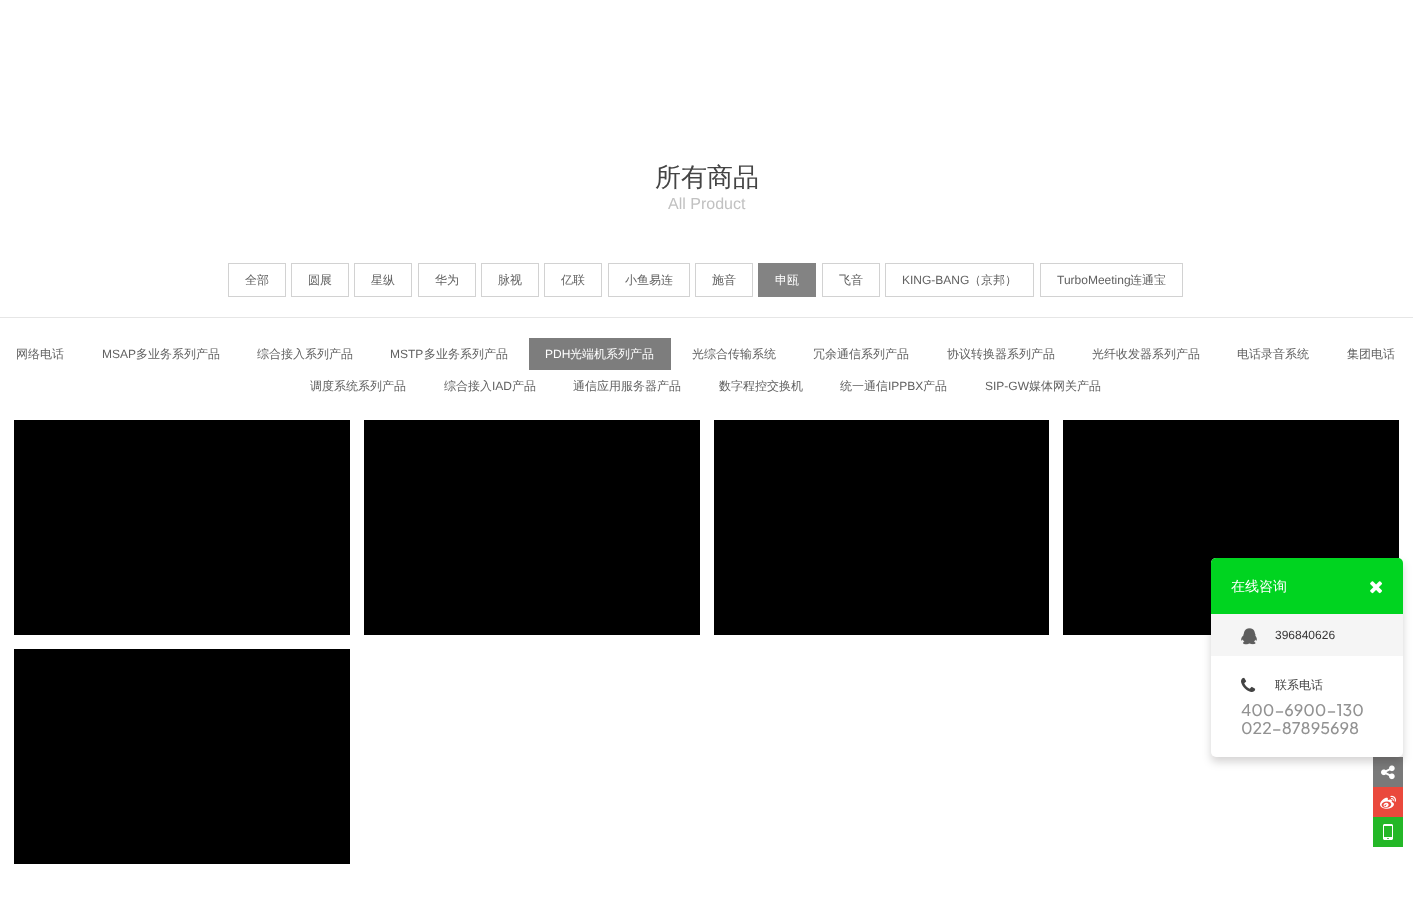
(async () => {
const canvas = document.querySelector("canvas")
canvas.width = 1413
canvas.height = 917
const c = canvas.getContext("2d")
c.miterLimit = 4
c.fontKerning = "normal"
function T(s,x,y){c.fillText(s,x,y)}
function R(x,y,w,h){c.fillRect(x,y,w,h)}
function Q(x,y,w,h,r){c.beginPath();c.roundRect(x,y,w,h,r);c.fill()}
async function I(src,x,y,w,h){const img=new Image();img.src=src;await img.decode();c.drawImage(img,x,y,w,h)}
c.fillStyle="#fff"
R(0,0,1413,917)
c.font="500 26px WenQuanYi Zen Hei"
c.fillStyle="#444"
T("所有商品",655,186)
c.font="16px Liberation Sans"
c.fillStyle="#c1c1c1"
T("All Product",668,209)
c.strokeStyle="#d2d2d2"
c.strokeRect(228.5,263.5,57,33)
c.font="500 12px WenQuanYi Zen Hei"
c.fillStyle="#616161"
T("全部",245,284)
c.strokeRect(481.5,263.5,57,33)
T("脉视",498,284)
c.strokeRect(695.5,263.5,57,33)
T("施音",712,284)
c.strokeRect(822.5,263.5,57,33)
T("飞音",839,284)
c.strokeRect(885.5,263.5,148,33)
c.font="12px Liberation Sans"
T("KING-BANG",902,284)
c.font="500 12px WenQuanYi Zen Hei"
T("（京邦）",969,284)
c.strokeRect(1040.5,263.5,142,33)
c.font="12px Liberation Sans"
T("TurboMeeting",1057,284)
c.font="500 12px WenQuanYi Zen Hei"
T("连通宝",1130,284)
c.fillStyle="#838383"
R(758,263,58,34)
c.fillStyle="#fff"
T("申瓯",775,284)
c.fillStyle="#e6e6e6"
R(0,317,1413,1)
c.fillStyle="#616161"
T("网络电话",16,358)
c.font="12px Liberation Sans"
T("MSAP",102,358)
c.font="500 12px WenQuanYi Zen Hei"
T("多业务系列产品",136,358)
T("综合接入系列产品",257,358)
c.font="12px Liberation Sans"
T("MSTP",390,358)
c.font="500 12px WenQuanYi Zen Hei"
T("多业务系列产品",424,358)
c.fillStyle="#7d7d7d"
R(529,338,142,32)
c.font="12px Liberation Sans"
c.fillStyle="#fff"
T("PDH",545,358)
c.font="500 12px WenQuanYi Zen Hei"
T("光端机系列产品",570,358)
c.fillStyle="#616161"
T("光综合传输系统",692,358)
T("冗余通信系列产品",813,358)
T("协议转换器系列产品",947,358)
T("光纤收发器系列产品",1092,358)
T("电话录音系统",1237,358)
T("集团电话",1347,358)
T("调度系统系列产品",310,390)
T("综合接入",444,390)
c.font="12px Liberation Sans"
T("IAD",492,390)
c.font="500 12px WenQuanYi Zen Hei"
T("产品",512,390)
T("通信应用服务器产品",573,390)
T("数字程控交换机",719,390)
T("统一通信",840,390)
c.font="12px Liberation Sans"
T("IPPBX",888,390)
c.font="500 12px WenQuanYi Zen Hei"
T("产品",923,390)
c.font="12px Liberation Sans"
T("SIP-GW",985,390)
c.font="500 12px WenQuanYi Zen Hei"
T("媒体网关产品",1029,390)
c.strokeRect(291.5,263.5,57,33)
T("圆展",308,284)
c.strokeRect(354.5,263.5,57,33)
T("星纵",371,284)
c.strokeRect(418.5,263.5,57,33)
T("华为",435,284)
c.strokeRect(544.5,263.5,57,33)
T("亿联",561,284)
c.strokeRect(608.5,263.5,81,33)
T("小鱼易连",625,284)
c.fillStyle="#000"
R(14,420,336,215)
R(364,420,336,215)
R(714,420,335,215)
R(1063,420,336,215)
R(14,649,336,215)
c.fillStyle="#797979"
R(1373,757,30,30)
await I("4.png",1381,765,14,15)
c.fillStyle="#0400002b"
c.filter="blur(4.5px)"
c.beginPath()
c.roundRect(1211,563,192,199,5)
c.fill()
c.filter="none"
c.fillStyle="#fff"
Q(1211,558,192,199,5)
c.fillStyle="#00d420"
c.beginPath()
c.roundRect(1211,558,192,56,[5,5,0,0])
c.fill()
c.font="500 14px WenQuanYi Zen Hei"
c.fillStyle="#fff"
T("在线咨询",1231,591)
await I("1.png",1370,581,12,13)
c.fillStyle="#f5f5f5"
R(1211,614,192,42)
await I("2.png",1241,628,16,17)
c.font="12px Liberation Sans"
c.fillStyle="#353434"
T("396840626",1275,639)
await I("3.png",1241,677,15,15)
c.font="500 12px WenQuanYi Zen Hei"
c.fillStyle="#444"
T("联系电话",1275,689)
c.font="500 16px Plus Jakarta Sans"
c.fillStyle="#929292"
T("400-6900-130",1241,716)
T("022-87895698",1241,734)
c.fillStyle="#ea493c"
R(1373,787,30,30)
await I("5.png",1380,795,16,14)
c.fillStyle="#24b727"
R(1373,817,30,30)
await I("6.png",1383,824,10,16)
})()
